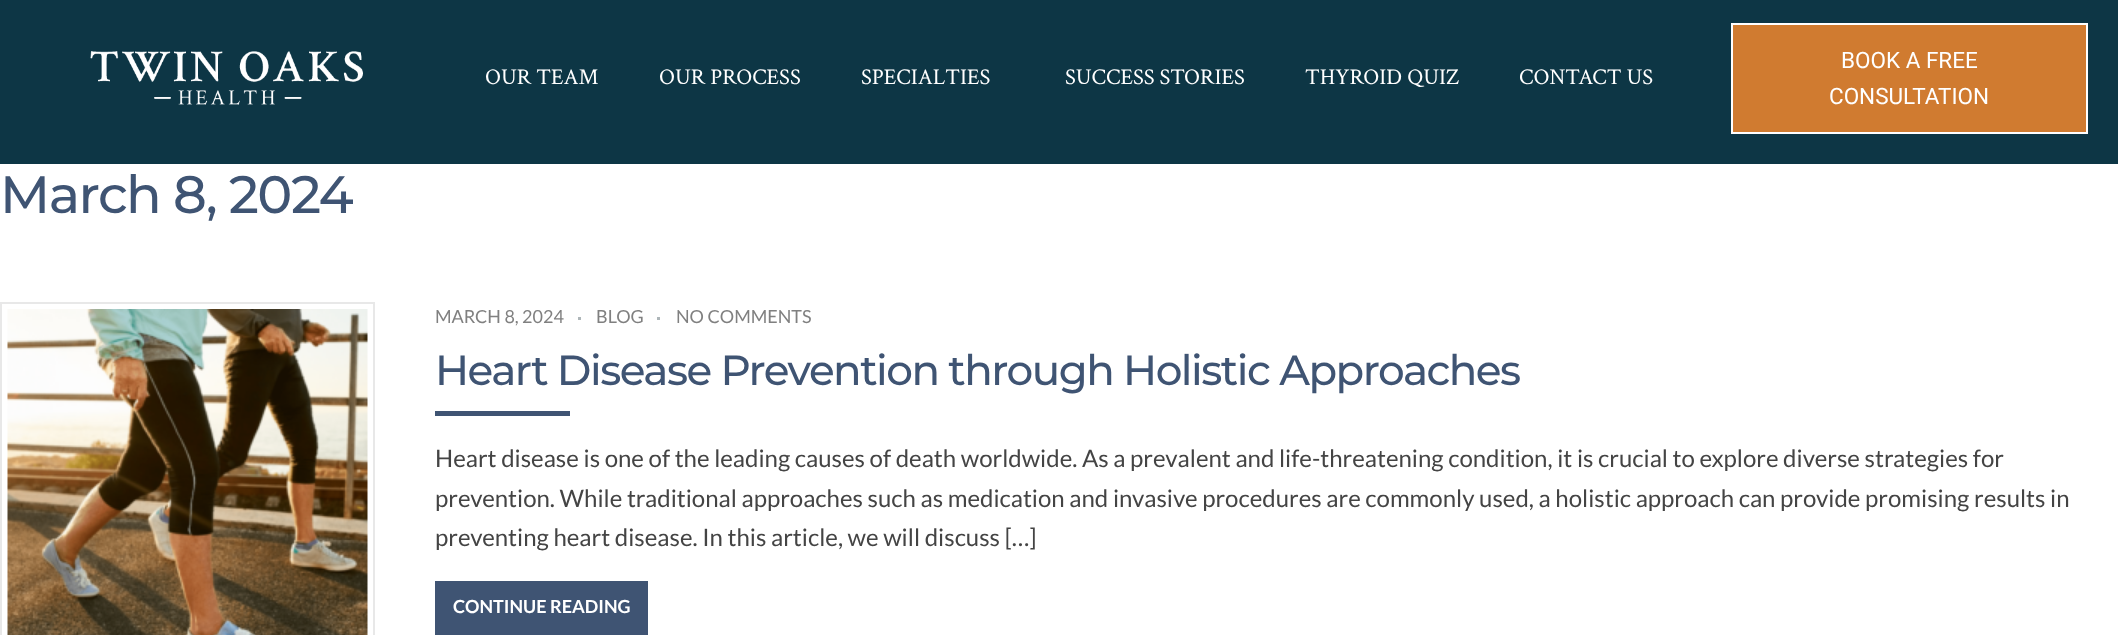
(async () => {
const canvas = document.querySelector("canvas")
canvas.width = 2118
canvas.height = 635
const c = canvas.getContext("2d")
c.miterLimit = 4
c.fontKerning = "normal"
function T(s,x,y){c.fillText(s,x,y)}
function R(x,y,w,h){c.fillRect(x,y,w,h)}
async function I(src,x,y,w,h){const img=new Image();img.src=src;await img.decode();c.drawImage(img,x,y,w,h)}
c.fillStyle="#fff"
R(0,0,2118,635)
c.fillStyle="#0d3645"
R(0,0,2118,164)
await I("1.png",90,51,273,54)
c.font="22.5px Crimson Text"
c.fillStyle="#fff"
T("OUR TEAM",485,84)
T("OUR PROCESS",659,84)
T("SPECIALTIES",861,84)
T("SUCCESS STORIES",1065,84)
T("THYROID QUIZ",1305,84)
T("CONTACT US",1519,84)
c.fillStyle="#d07b30"
c.beginPath()
c.rect(1732,24,355,109)
c.fill()
c.strokeStyle="#fff"
c.lineWidth=2
c.stroke()
c.font="22.5px Roboto"
c.fillStyle="#fff"
T("BOOK A FREE",1841,68)
T("CONSULTATION",1829,104)
c.letterSpacing="-1.5px"
c.font="500 52.5px Montserrat"
c.fillStyle="#3f5473"
T("March 8, 2024",0,213)
c.strokeStyle="#e8e8e8"
c.strokeRect(1,303,373,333)
await I("2.png",7,309,361,326)
c.letterSpacing="0px"
c.font="18px Lato"
c.fillStyle="#808080"
T("MARCH 8, 2024",435,323)
c.fillStyle="#aeb6b9"
R(578,317,3,3)
c.fillStyle="#808080"
T("BLOG",596,323)
c.fillStyle="#aeb6b9"
R(657,317,3,3)
c.fillStyle="#808080"
T("NO COMMENTS",676,323)
c.letterSpacing="-1.5px"
c.font="500 42px Montserrat"
c.fillStyle="#3f5473"
T("Heart Disease Prevention through Holistic Approaches",435,385)
R(435,411,135,5)
c.letterSpacing="0px"
c.font="24px Lato"
c.fillStyle="#444"
T("Heart disease is one of the leading causes of death worldwide. As a prevalent and life-threatening condition, it is crucial to explore diverse strategies for",435,467)
T("prevention. While traditional approaches such as medication and invasive procedures are commonly used, a holistic approach can provide promising results in",435,507)
T("preventing heart disease. In this article, we will discuss […]",435,546)
c.fillStyle="#3f5473"
R(435,581,213,54)
c.font="bold 18px Lato"
c.fillStyle="#fff"
T("CONTINUE READING",453,613)
})()
